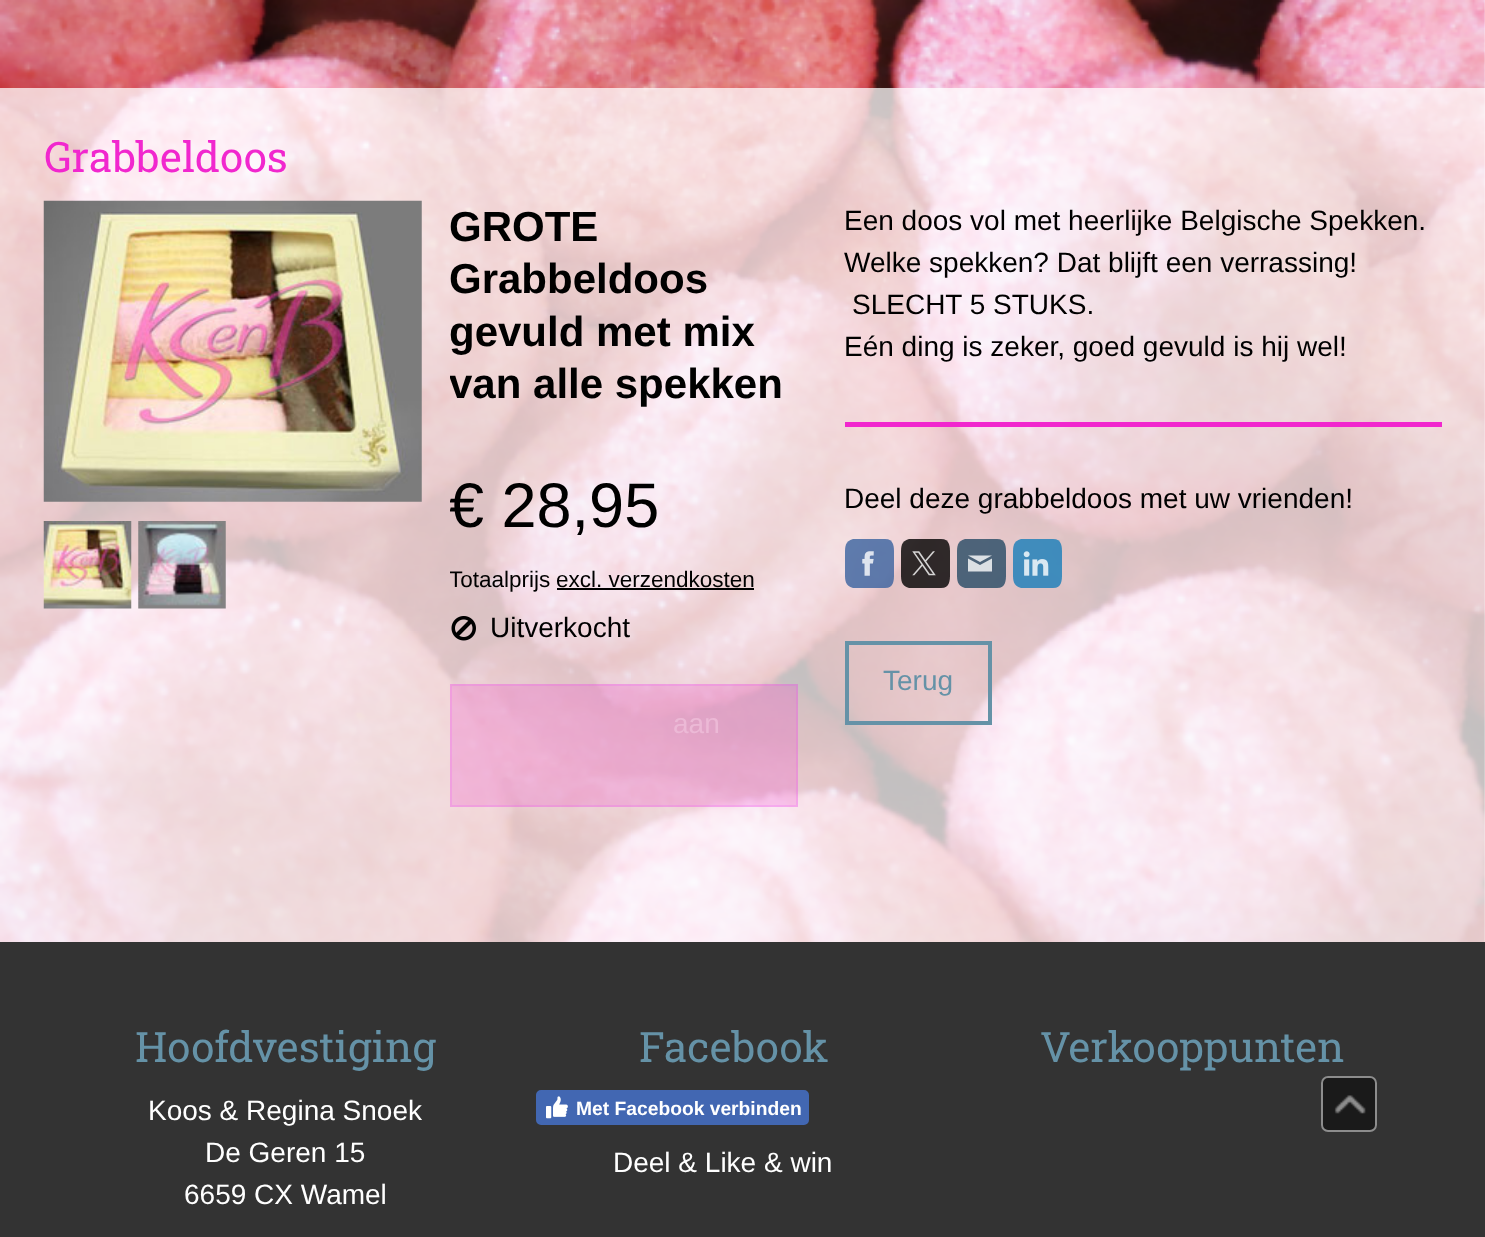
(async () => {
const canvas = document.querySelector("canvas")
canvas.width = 1485
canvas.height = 1237
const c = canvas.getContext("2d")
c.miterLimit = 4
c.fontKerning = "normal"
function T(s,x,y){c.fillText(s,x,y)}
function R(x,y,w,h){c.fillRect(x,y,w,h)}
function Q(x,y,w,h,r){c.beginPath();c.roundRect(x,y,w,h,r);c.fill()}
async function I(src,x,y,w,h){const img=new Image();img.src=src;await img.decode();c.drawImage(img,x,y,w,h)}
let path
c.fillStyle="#fff"
R(0,0,1485,1237)
await I("1.png",0,0,1485,942)
c.fillStyle="#ffffffbf"
R(0,88,1485,854)
c.font="42px Roboto Slab"
c.fillStyle="#f127ce"
T("Grabbeldoos",44,172)
await I("2.png",43,200,379,302)
await I("3.png",43,521,89,88)
await I("4.png",138,521,88,88)
c.font="bold 42px Liberation Sans"
c.fillStyle="#000"
T("GROTE",449,241)
T("Grabbeldoos",449,293)
T("gevuld met mix",449,346)
c.save()
c.beginPath()
c.rect(450,201,348,641)
c.clip()
T("van alle spekken",449,398)
c.font="63px Liberation Sans"
T("€ 28,95",449,527)
c.font="22.5px Liberation Sans"
T("Totaalprijs",449,587)
c.restore()
c.font="22.5px Liberation Sans"
T("excl. verzendkosten",556,587)
R(557,588,197,2)
await I("5.png",451,616,25,25)
c.font="28px Liberation Sans"
T("Uitverkocht",490,637)
c.fillStyle="#f127ce33"
R(450,684,348,123)
c.strokeStyle="#f14aff33"
c.lineWidth=2
c.strokeRect(451,685,346,121)
c.fillStyle="#ecb9d6"
T("aan",673,733)
c.fillStyle="#000"
T("Een doos vol met heerlijke Belgische Spekken.",844,230)
T("Welke spekken? Dat blijft een verrassing!",844,272)
T("SLECHT 5 STUKS.",852,314)
T("Eén ding is zeker, goed gevuld is hij wel!",844,356)
c.fillStyle="#f127ce"
R(845,422,597,5)
c.fillStyle="#000"
T("Deel deze grabbeldoos met uw vrienden!",844,508)
c.fillStyle="#38619fcc"
path = new Path2D("M885 588h-32c-8-2-8-8-8-14v-21c0-6 0-12 8-14h32c9 0 9 8 9 14v21c0 6 0 14-9 14z")
c.fill(path)
await I("6.png",862,551,12,25)
c.fillStyle="#000000cc"
path = new Path2D("M941 588h-32c-8-2-8-8-8-14v-21c0-6 0-12 8-14h32c9 0 9 8 9 14v21c0 6 0 14-9 14z")
c.fill(path)
await I("7.png",912,551,24,25)
c.fillStyle="#264a64cc"
path = new Path2D("M997 588h-32c-8-2-8-8-8-14v-21c0-6 0-12 8-14h32c9 0 9 8 9 14v21c0 6 0 14-9 14z")
c.fill(path)
c.fillStyle="#dbe0e4"
path = new Path2D("M992 571.5h-24v-13l12 6.5l12-6.5zm0-16h-24l12 6.5z")
c.fill(path)
c.fillStyle="#177db9cc"
path = new Path2D("M1053 588h-32c-8-2-8-8-8-14v-21c0-6 0-12 8-14h32c9 0 9 8 9 14v21c0 6 0 14-9 14z")
c.fill(path)
await I("8.png",1023,551,26,25)
c.strokeStyle="#6592a7"
c.lineWidth=4
c.strokeRect(847,643,143,80)
c.fillStyle="#6592a7"
T("Terug",883,690)
c.fillStyle="#333"
R(0,942,1485,295)
c.font="42px Roboto Slab"
c.fillStyle="#6592a7"
T("Hoofdvestiging",135,1062)
c.font="28px Liberation Sans"
c.fillStyle="#fff"
T("Koos & Regina Snoek",148,1120)
T("De Geren 15",205,1162)
T("6659 CX Wamel",184,1204)
c.font="42px Roboto Slab"
c.fillStyle="#6592a7"
T("Facebook",639,1062)
c.fillStyle="#4267b2"
c.beginPath()
c.roundRect(537,1091,271,33,4)
c.fill()
c.strokeStyle="#4267b2"
c.lineWidth=2
c.stroke()
await I("9.png",546,1096,22,23)
c.font="bold 19.25px Liberation Sans"
c.fillStyle="#fff"
T("Met Facebook verbinden",576,1115)
c.font="28px Liberation Sans"
T("Deel & Like & win",613,1172)
c.font="42px Roboto Slab"
c.fillStyle="#6592a7"
T("Verkooppunten",1040,1062)
c.fillStyle="#1a1a1a"
Q(1321,1076,56,56,7)
c.beginPath()
c.roundRect(1322,1077,54,54,6)
c.strokeStyle="#ffffff80"
c.stroke()
await I("10.png",1334,1095,32,19)
})()
